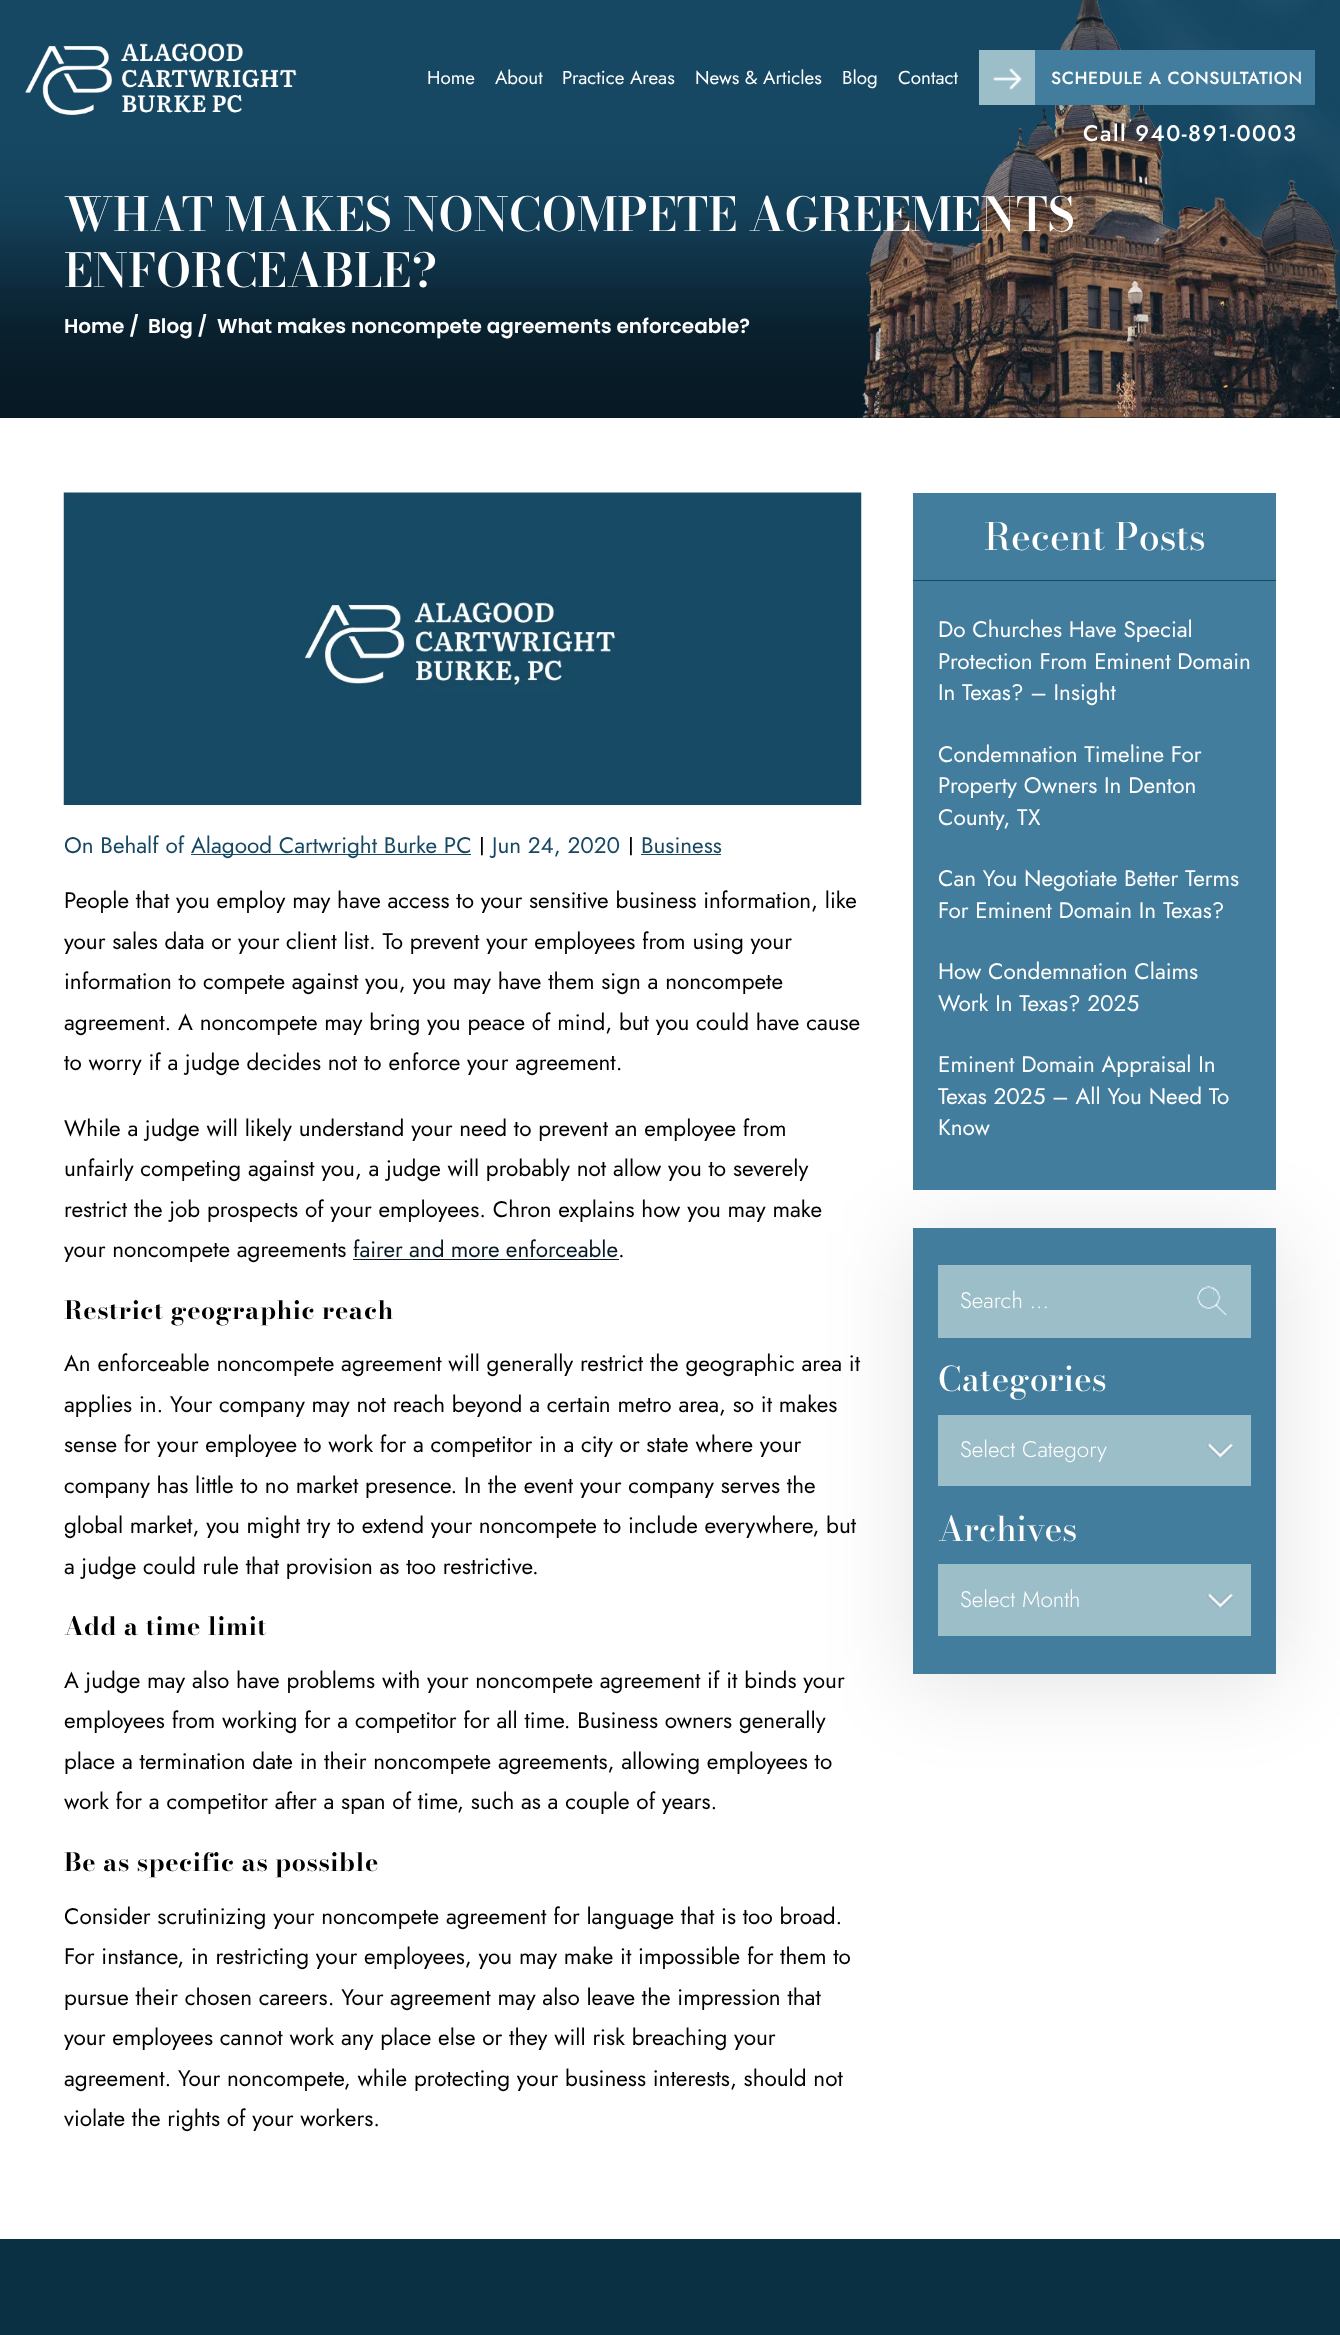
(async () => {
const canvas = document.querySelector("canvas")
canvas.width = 1340
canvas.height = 2335
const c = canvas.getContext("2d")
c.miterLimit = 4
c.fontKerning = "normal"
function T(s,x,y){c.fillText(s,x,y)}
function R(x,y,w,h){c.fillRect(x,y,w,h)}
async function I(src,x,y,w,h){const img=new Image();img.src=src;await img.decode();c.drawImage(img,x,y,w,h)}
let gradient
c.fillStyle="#fff"
R(0,0,1340,2335)
gradient = c.createLinearGradient(670,0,670,418)
gradient.addColorStop(0,"#164864")
gradient.addColorStop(.3,"#164864")
gradient.addColorStop(.44,"#15445e")
gradient.addColorStop(.5,"#14415a")
gradient.addColorStop(.56,"#123a51")
gradient.addColorStop(.71,"#0c2839")
gradient.addColorStop(.74,"#0b2636")
gradient.addColorStop(.76,"#0a2433")
gradient.addColorStop(.78,"#0a2230")
gradient.addColorStop(.8,"#09212f")
gradient.addColorStop(.82,"#091f2c")
gradient.addColorStop(.93,"#071a25")
gradient.addColorStop(1,"#071924")
c.fillStyle = gradient
R(0,0,1340,418)
await I("1.png",25,43,272,72)
c.font="18.75px Jost"
c.fillStyle="#fff"
T("Home",427,84)
T("About",495,84)
T("Practice Areas",562,84)
T("News & Articles",695,84)
await I("3.png",861,0,479,418)
T("Blog",842,84)
T("Contact",898,84)
c.fillStyle="#427d9d"
R(1035,50,280,55)
c.fillStyle="#9bbec8"
R(979,50,56,55)
await I("2.png",993,68,29,22)
c.letterSpacing="0.6px"
c.font="500 17.5px Jost"
c.fillStyle="#fff"
T("SCHEDULE A CONSULTATION",1051,84)
c.letterSpacing="1.5px"
c.font="500 22.5px Jost"
T("Call 940-891-0003",1083,141)
c.letterSpacing="0px"
c.font="600 46.25px Bodoni Moda"
T("WHAT MAKES NONCOMPETE AGREEMENTS",64,231)
T("ENFORCEABLE?",64,287)
c.font="600 20px Poppins"
T("Home /",64,333)
T("Blog /",148,333)
T("What makes noncompete agreements enforceable?",217,333)
await I("4.png",63,492,799,313)
c.font="22.5px Jost"
c.fillStyle="#164863"
T("On Behalf of",64,853)
R(191,854,280,1)
T("Alagood Cartwright Burke PC",191,853)
c.font="20px Poppins"
c.fillStyle="#000"
T("|",479,853)
c.font="22.5px Jost"
c.fillStyle="#164863"
T("Jun 24, 2020",492,853)
c.font="20px Poppins"
c.fillStyle="#000"
T("|",628,853)
c.font="22.5px Jost"
c.fillStyle="#164863"
T("Business",641,853)
R(641,854,80,1)
c.fillStyle="#000"
T("People that you employ may have access to your sensitive business information, like",64,908)
T("your sales data or your client list. To prevent your employees from using your",64,949)
T("information to compete against you, you may have them sign a noncompete",64,989)
T("agreement. A noncompete may bring you peace of mind, but you could have cause",64,1030)
T("to worry if a judge decides not to enforce your agreement.",64,1070)
T("While a judge will likely understand your need to prevent an employee from",64,1136)
T("unfairly competing against you, a judge will probably not allow you to severely",64,1176)
T("restrict the job prospects of your employees. Chron explains how you may make",64,1217)
T("your noncompete agreements",64,1257)
c.wordSpacing="-0.5px"
c.fillStyle="#071925"
T("fairer and more enforceable",353,1257)
R(353,1259,266,1)
c.wordSpacing="0px"
c.fillStyle="#000"
T(".",618,1257)
c.letterSpacing="0.6px"
c.font="bold 25px Bodoni Moda"
T("Restrict geographic reach",64,1319)
c.letterSpacing="0px"
c.font="22.5px Jost"
T("An enforceable noncompete agreement will generally restrict the geographic area it",64,1371)
T("applies in. Your company may not reach beyond a certain metro area, so it makes",64,1412)
T("sense for your employee to work for a competitor in a city or state where your",64,1452)
T("company has little to no market presence. In the event your company serves the",64,1493)
T("global market, you might try to extend your noncompete to include everywhere, but",64,1533)
T("a judge could rule that provision as too restrictive.",64,1574)
c.letterSpacing="0.6px"
c.font="bold 25px Bodoni Moda"
T("Add a time limit",64,1635)
c.letterSpacing="0px"
c.font="22.5px Jost"
T("A judge may also have problems with your noncompete agreement if it binds your",64,1688)
T("employees from working for a competitor for all time. Business owners generally",64,1728)
T("place a termination date in their noncompete agreements, allowing employees to",64,1769)
T("work for a competitor after a span of time, such as a couple of years.",64,1809)
c.letterSpacing="0.6px"
c.font="bold 25px Bodoni Moda"
T("Be as specific as possible",64,1871)
c.letterSpacing="0px"
c.font="22.5px Jost"
T("Consider scrutinizing your noncompete agreement for language that is too broad.",64,1924)
T("For instance, in restricting your employees, you may make it impossible for them to",64,1964)
T("pursue their chosen careers. Your agreement may also leave the impression that",64,2005)
T("your employees cannot work any place else or they will risk breaching your",64,2045)
T("agreement. Your noncompete, while protecting your business interests, should not",64,2086)
T("violate the rights of your workers.",64,2126)
c.fillStyle="#0000001a"
c.filter="blur(43px)"
c.beginPath()
c.rect(908,1231,373,457)
c.fill()
c.filter="none"
c.fillStyle="#427d9d"
R(913,493,363,697)
c.fillStyle="#164863"
R(913,580,363,1)
c.font="500 37.5px Bodoni Moda"
c.fillStyle="#fff"
T("Recent Posts",984,550)
c.font="22.5px Jost"
T("Do Churches Have Special",938,637)
T("Protection From Eminent Domain",938,669)
T("In Texas? – Insight",938,700)
T("Condemnation Timeline For",938,762)
T("Property Owners In Denton",938,793)
T("County, TX",938,825)
T("Can You Negotiate Better Terms",938,886)
T("For Eminent Domain In Texas?",938,918)
T("How Condemnation Claims",938,979)
T("Work In Texas? 2025",938,1011)
T("Eminent Domain Appraisal In",938,1072)
T("Texas 2025 – All You Need To",938,1104)
T("Know",938,1135)
c.fillStyle="#427d9d"
R(913,1228,363,446)
c.fillStyle="#9bbec8"
R(938,1265,313,73)
await I("5.png",1197,1286,30,30)
c.font="300 22.5px Jost"
c.fillStyle="#fff"
T("Search …",960,1308)
await I("6.png",1213,1287,1,10)
c.font="500 33.75px Bodoni Moda"
T("Categories",938,1391)
c.fillStyle="#9bbec8"
R(938,1415,313,71)
await I("7.png",1207,1443,26,15)
c.font="300 22.5px Jost"
c.fillStyle="#fff"
T("Select Category",960,1457)
c.font="500 33.75px Bodoni Moda"
T("Archives",938,1541)
c.fillStyle="#9bbec8"
R(938,1564,313,72)
await I("7.png",1207,1593,26,15)
c.font="300 22.5px Jost"
c.fillStyle="#fff"
T("Select Month",960,1607)
c.fillStyle="#0a3044"
R(0,2239,1340,96)
})()
